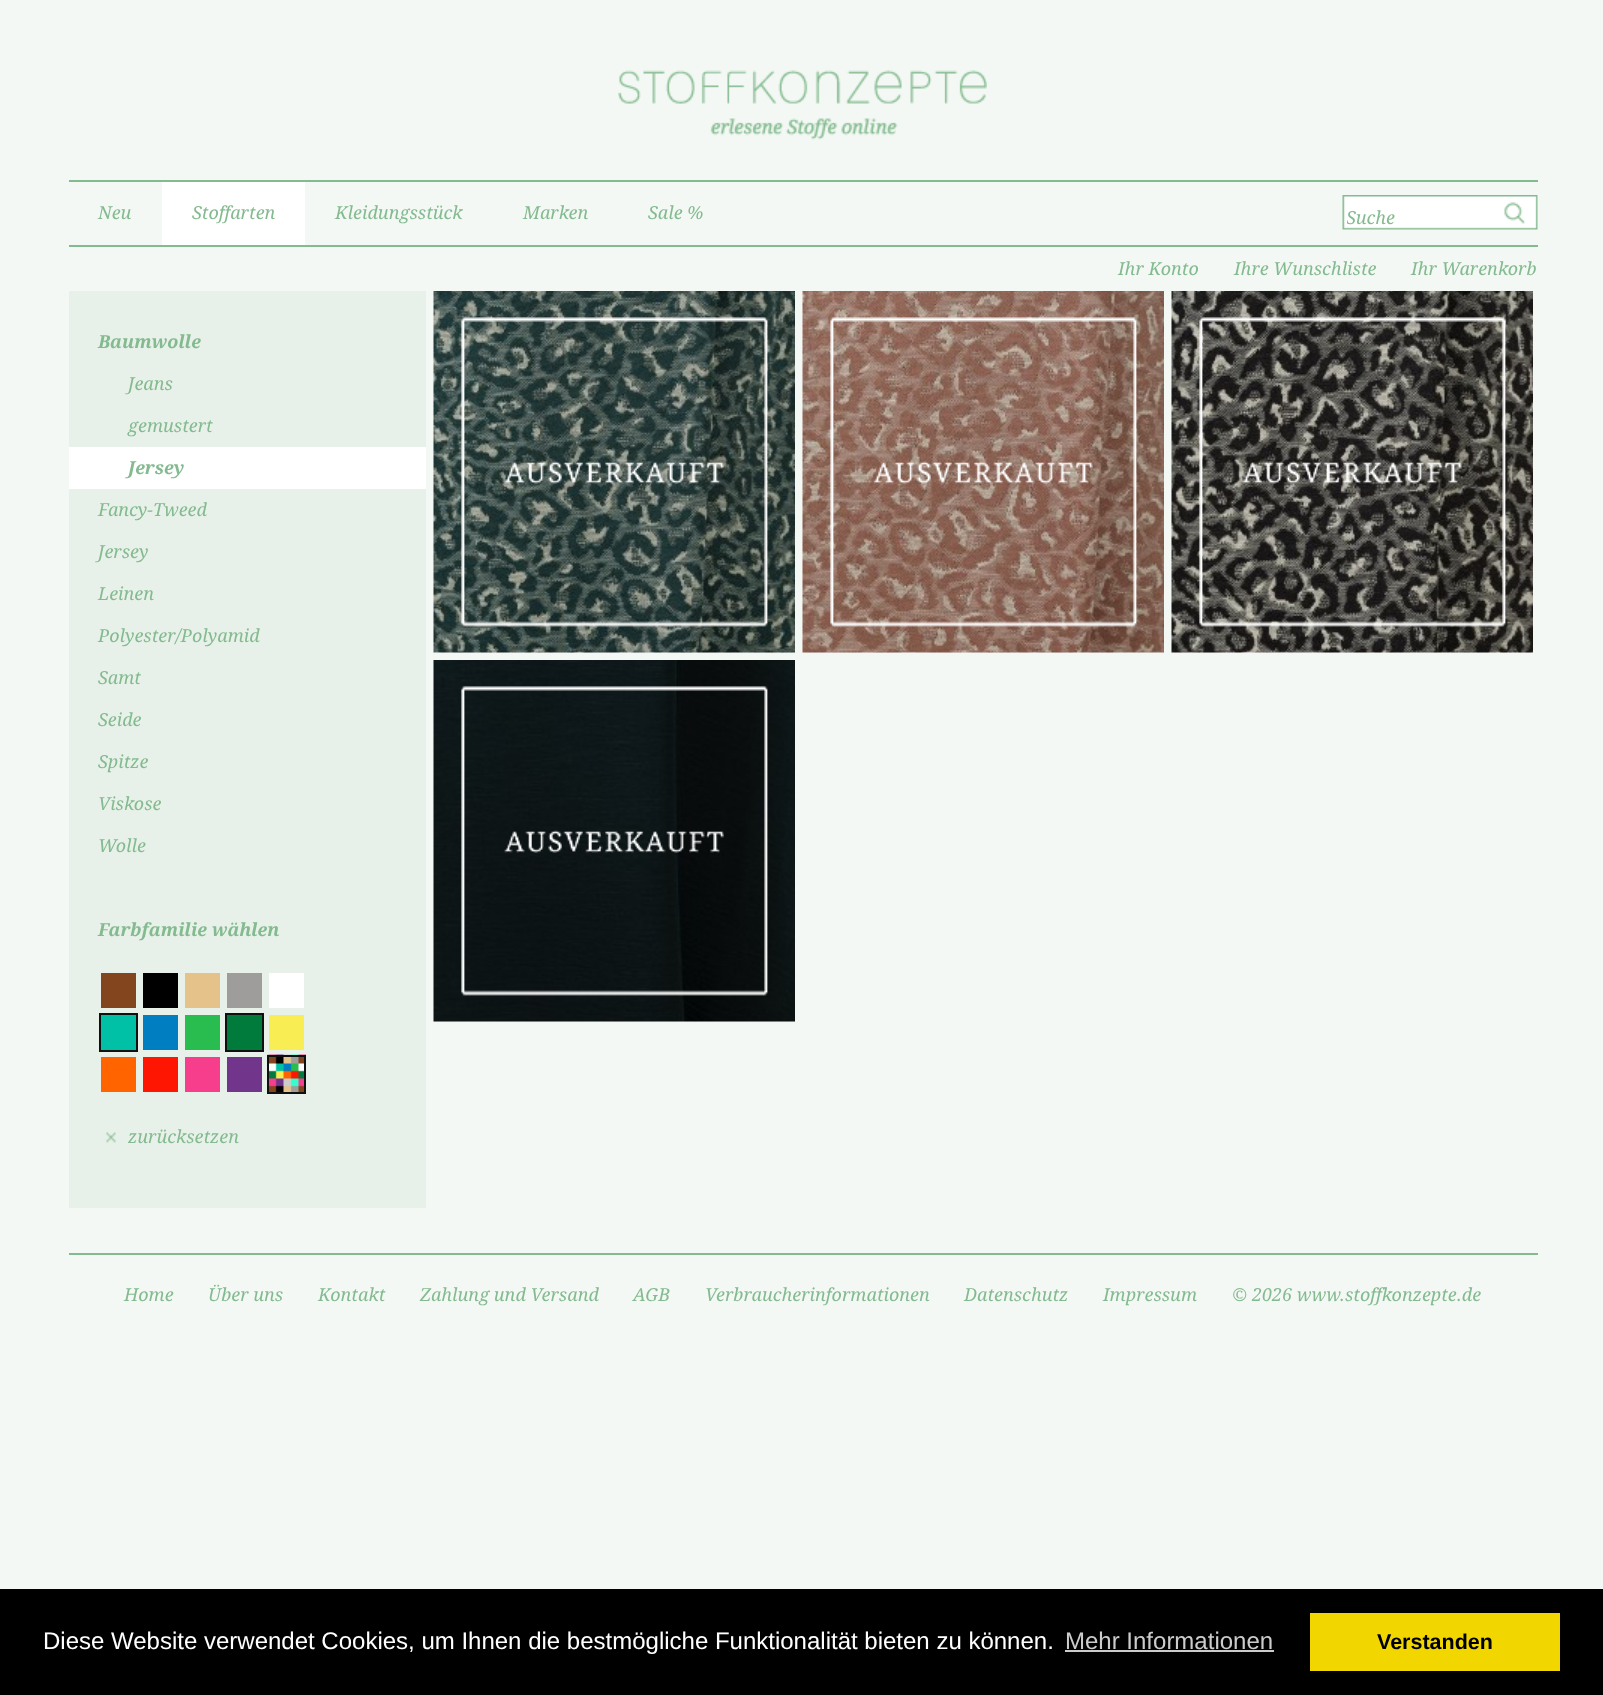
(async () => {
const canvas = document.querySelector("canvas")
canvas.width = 1603
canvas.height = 1695
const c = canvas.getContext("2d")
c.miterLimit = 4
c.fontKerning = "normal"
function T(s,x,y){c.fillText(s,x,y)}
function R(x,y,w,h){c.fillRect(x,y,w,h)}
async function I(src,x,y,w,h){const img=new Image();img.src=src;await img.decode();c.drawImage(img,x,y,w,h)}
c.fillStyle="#f3f8f4"
R(0,0,1603,1695)
await I("1.png",618,70,369,70)
c.fillStyle="#83ba8f"
R(69,180,1469,2)
R(69,245,1469,2)
c.font="italic 18px Droid Serif"
T("Neu",98,219)
c.fillStyle="#fff"
R(162,182,143,63)
c.fillStyle="#83ba8f"
T("Stoffarten",192,219)
T("Kleidungsstück",335,219)
T("Marken",523,219)
T("Sale %",648,219)
await I("2.png",1342,195,196,35)
c.save()
c.beginPath()
c.rect(1347,201,150,33)
c.clip()
T("Suche",1346,224)
c.restore()
T("Ihr Konto",1118,275)
T("Ihre Wunschliste",1234,275)
T("Ihr Warenkorb",1411,275)
c.fillStyle="#e8f1e9"
R(69,291,357,917)
c.font="italic bold 18px Droid Serif"
c.fillStyle="#83ba8f"
T("Baumwolle",98,348)
c.font="italic 18px Droid Serif"
T("Jeans",128,390)
T("gemustert",128,432)
c.fillStyle="#fff"
R(69,447,357,42)
c.font="italic bold 18px Droid Serif"
c.fillStyle="#83ba8f"
T("Jersey",128,474)
c.font="italic 18px Droid Serif"
T("Fancy-Tweed",98,516)
T("Jersey",98,558)
T("Leinen",98,600)
T("Polyester/Polyamid",98,642)
T("Samt",98,684)
T("Seide",98,726)
T("Spitze",98,768)
T("Viskose",98,810)
T("Wolle",98,852)
c.font="italic bold 18px Droid Serif"
T("Farbfamilie wählen",98,936)
c.fillStyle="#83451e"
R(101,973,35,35)
c.fillStyle="#000"
R(143,973,35,35)
c.fillStyle="#e6c28b"
R(185,973,35,35)
c.fillStyle="#9f9d9b"
R(227,973,35,35)
c.fillStyle="#fff"
R(269,973,35,35)
c.fillStyle="#00c1a6"
c.beginPath()
c.rect(100,1014,37,37)
c.fill()
c.strokeStyle="#101010"
c.lineWidth=2
c.stroke()
c.fillStyle="#007ec2"
R(143,1015,35,35)
c.fillStyle="#29bc4e"
R(185,1015,35,35)
c.fillStyle="#007b3c"
c.beginPath()
c.rect(226,1014,37,37)
c.fill()
c.stroke()
c.fillStyle="#f9ed54"
R(269,1015,35,35)
c.fillStyle="#ff6400"
R(101,1057,35,35)
c.fillStyle="#ff1602"
R(143,1057,35,35)
c.fillStyle="#f63e8d"
R(185,1057,35,35)
c.fillStyle="#71368b"
R(227,1057,35,35)
await I("3.png",267,1054,39,38)
c.strokeRect(268,1056,37,37)
await I("4.png",106,1132,10,11)
c.font="italic 18px Droid Serif"
c.fillStyle="#83ba8f"
T("zurücksetzen",128,1143)
c.fillStyle="#f0f0f0"
R(434,652,361,1)
await I("5.png",433,291,362,362)
await I("6.png",461,317,307,310)
R(803,652,361,1)
await I("7.png",802,291,362,362)
await I("8.png",830,317,307,310)
R(1172,652,361,1)
await I("9.png",1171,291,362,362)
await I("10.png",1199,317,307,310)
R(434,1021,361,1)
await I("11.png",433,660,362,362)
await I("12.png",461,686,307,310)
c.fillStyle="#83ba8f"
R(69,1253,1469,2)
T("Home",124,1301)
T("Über uns",208,1301)
T("Kontakt",318,1301)
T("Zahlung und Versand",420,1301)
T("AGB",633,1301)
T("Verbraucherinformationen",705,1301)
T("Datenschutz",964,1301)
T("Impressum",1103,1301)
T("© 2026 www.stoffkonzepte.de",1232,1301)
c.fillStyle="#000"
R(0,1589,1603,106)
c.font="24px Liberation Sans"
c.fillStyle="#fff"
T("Diese Website verwendet Cookies, um Ihnen die bestmögliche Funktionalität bieten zu können.",43,1649)
c.fillStyle="#ccc"
T("Mehr Informationen",1065,1649)
R(1065,1650,209,2)
c.fillStyle="#f1d600"
R(1310,1613,250,58)
c.font="bold 21.5px Liberation Sans"
c.fillStyle="#000"
T("Verstanden",1377,1649)
})()
